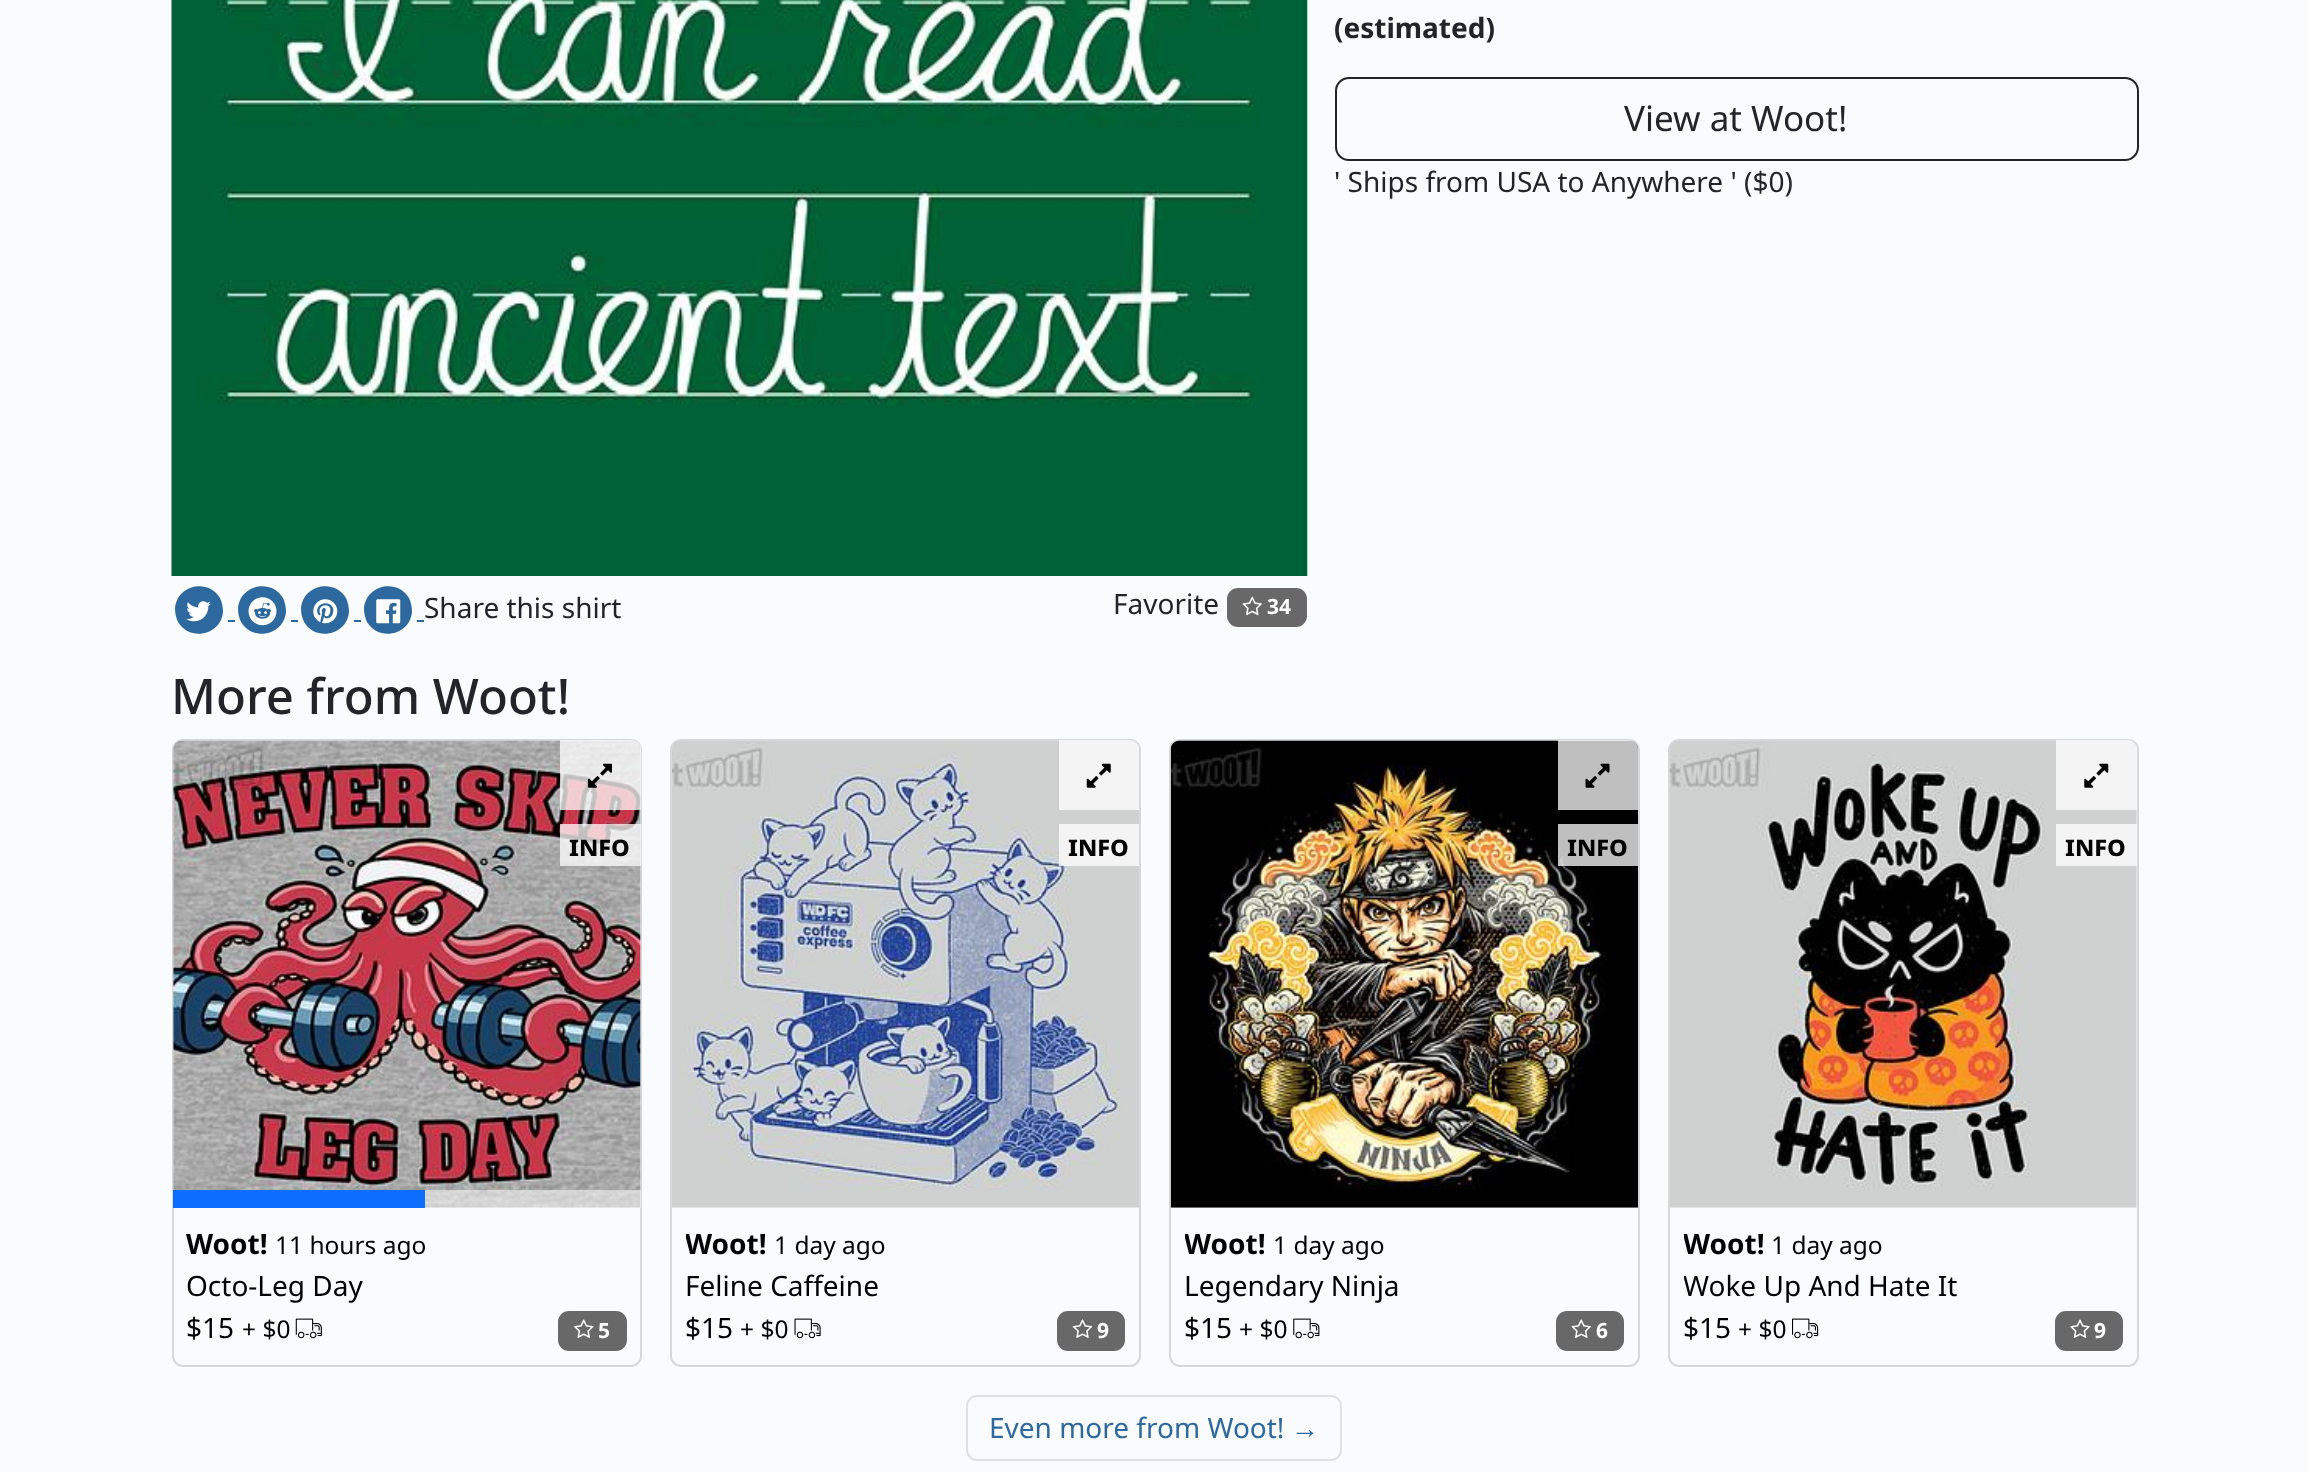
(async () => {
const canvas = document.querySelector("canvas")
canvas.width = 2308
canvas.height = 1472
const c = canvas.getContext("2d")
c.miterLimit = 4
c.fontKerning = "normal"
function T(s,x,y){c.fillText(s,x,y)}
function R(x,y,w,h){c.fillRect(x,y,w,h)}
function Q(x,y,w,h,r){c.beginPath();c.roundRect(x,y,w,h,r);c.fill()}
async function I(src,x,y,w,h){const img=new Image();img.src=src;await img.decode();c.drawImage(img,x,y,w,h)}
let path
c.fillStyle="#fafbfd"
R(0,0,2308,1472)
c.font="bold 28px Noto Sans"
c.fillStyle="#212529"
T("(estimated)",1334,38)
c.beginPath()
c.roundRect(1336,78,802,82,13)
c.strokeStyle="#212529"
c.lineWidth=2
c.stroke()
c.font="35px Noto Sans"
T("View at Woot!",1624,131)
c.font="28px Noto Sans"
T("' Ships from USA to Anywhere ' ($0)",1334,192)
await I("1.png",171,0,1137,576)
c.fillStyle="#2d699e"
path = new Path2D("M220 598c2 4 3 9 3 14c-2 23-33 30-45 10c-2-4-3-9-3-14c2-23 33-30 45-10z")
c.fill(path)
await I("2.png",186,601,25,21)
R(228,620,7,2)
path = new Path2D("M283 598c2 4 3 9 3 14c-2 23-33 30-45 10c-2-4-3-9-3-14c2-23 33-30 45-10z")
c.fill(path)
await I("3.png",248,597,29,29)
R(291,620,7,2)
path = new Path2D("M346 598c2 4 3 9 3 14c-2 23-33 30-45 10c-2-4-3-9-3-14c2-23 33-30 45-10z")
c.fill(path)
await I("4.png",313,599,25,25)
R(354,620,7,2)
path = new Path2D("M409 598c2 4 3 9 3 14c-2 23-33 30-45 10c-2-4-3-9-3-14c2-23 33-30 45-10z")
c.fill(path)
await I("5.png",376,599,25,25)
R(417,620,7,2)
c.fillStyle="#212529"
T("Share this shirt",424,618)
T("Favorite",1113,614)
c.fillStyle="#686868"
Q(1227,588,80,39,11)
await I("6.png",1242,596,20,20)
c.font="bold 21px Noto Sans"
c.fillStyle="#fff"
T("34",1267,614)
c.font="500 49px Noto Sans"
c.fillStyle="#212529"
T("More from Woot!",171,714)
c.beginPath()
c.roundRect(173,740,468,626,10)
c.strokeStyle="#d7d8d9"
c.stroke()
await I("8.png",173,740,468,468)
c.fillStyle="#ffffffbf"
c.beginPath()
c.roundRect(560,740,81,70,[0,9,0,0])
c.fill()
await I("7.png",588,763,24,25)
R(560,824,81,42)
c.font="bold 28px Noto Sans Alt"
c.fillStyle="#000"
T("info",569,856)
c.fillStyle="#ffffff80"
R(425,1190,216,18)
c.fillStyle="#0d6efd"
R(173,1190,252,18)
c.font="bold 28px Noto Sans"
c.fillStyle="#000"
T("Woot!",186,1254)
c.font="24.5px Noto Sans"
T("11 hours ago",275,1254)
c.font="28px Noto Sans"
T("Octo-Leg Day",186,1296)
T("$15",186,1338)
c.font="24.5px Noto Sans"
T("+ $0",242,1338)
await I("9.png",295,1318,27,21)
c.fillStyle="#686868"
Q(558,1311,69,40,11)
await I("10.png",574,1319,20,19)
c.font="bold 21px Noto Sans"
c.fillStyle="#fff"
T("5",598,1338)
c.beginPath()
c.roundRect(671,740,469,626,10)
c.stroke()
await I("12.png",672,741,467,467)
c.fillStyle="#ffffffbf"
c.beginPath()
c.roundRect(1059,740,80,70,[0,9,0,0])
c.fill()
await I("11.png",1086,763,25,25)
R(1059,824,80,42)
c.font="bold 28px Noto Sans Alt"
c.fillStyle="#000"
T("info",1068,856)
c.save()
c.beginPath()
c.rect(686,1222,439,42)
c.clip()
c.font="bold 28px Noto Sans"
T("Woot!",685,1254)
c.restore()
c.font="24.5px Noto Sans"
T("1 day ago",774,1254)
c.font="28px Noto Sans"
T("Feline Caffeine",685,1296)
T("$15",685,1338)
c.font="24.5px Noto Sans"
T("+ $0",740,1338)
await I("13.png",794,1318,27,21)
c.fillStyle="#686868"
Q(1057,1311,68,40,11)
await I("14.png",1072,1319,21,19)
c.font="bold 21px Noto Sans"
c.fillStyle="#fff"
T("9",1097,1338)
c.beginPath()
c.roundRect(1170,740,469,626,10)
c.stroke()
await I("16.png",1170,740,468,468)
c.fillStyle="#ffffffbf"
c.beginPath()
c.roundRect(1558,740,80,70,[0,9,0,0])
c.fill()
await I("15.png",1585,763,25,25)
R(1558,824,80,42)
c.font="bold 28px Noto Sans Alt"
c.fillStyle="#000"
T("info",1567,856)
c.save()
c.beginPath()
c.rect(1185,1222,439,42)
c.clip()
c.font="bold 28px Noto Sans"
T("Woot!",1184,1254)
c.restore()
c.font="24.5px Noto Sans"
T("1 day ago",1273,1254)
c.font="28px Noto Sans"
T("Legendary Ninja",1184,1296)
T("$15",1184,1338)
c.font="24.5px Noto Sans"
T("+ $0",1239,1338)
await I("17.png",1293,1318,27,21)
c.fillStyle="#686868"
Q(1556,1311,68,40,11)
await I("18.png",1571,1319,20,19)
c.font="bold 21px Noto Sans"
c.fillStyle="#fff"
T("6",1596,1338)
c.beginPath()
c.roundRect(1669,740,469,626,10)
c.stroke()
await I("20.png",1669,741,468,467)
c.fillStyle="#ffffffbf"
c.beginPath()
c.roundRect(2056,740,81,70,[0,9,0,0])
c.fill()
await I("19.png",2084,763,25,25)
R(2056,824,81,42)
c.font="bold 28px Noto Sans Alt"
c.fillStyle="#000"
T("info",2065,856)
c.save()
c.beginPath()
c.rect(1684,1222,439,42)
c.clip()
c.font="bold 28px Noto Sans"
T("Woot!",1683,1254)
c.restore()
c.font="24.5px Noto Sans"
T("1 day ago",1771,1254)
c.save()
c.beginPath()
c.rect(1684,1264,439,42)
c.clip()
c.font="28px Noto Sans"
T("Woke Up And Hate It",1683,1296)
c.restore()
c.font="28px Noto Sans"
T("$15",1683,1338)
c.font="24.5px Noto Sans"
T("+ $0",1738,1338)
await I("21.png",1792,1318,27,21)
c.fillStyle="#686868"
Q(2055,1311,68,40,11)
await I("22.png",2070,1319,20,19)
c.font="bold 21px Noto Sans"
c.fillStyle="#fff"
T("9",2094,1338)
c.beginPath()
c.roundRect(967,1396,374,64,10)
c.strokeStyle="#dee2e6"
c.stroke()
c.font="28px Noto Sans"
c.fillStyle="#2d699e"
T("Even more from Woot!",989,1438)
c.font="28px Liberation Sans"
T("→",1291,1438)
})()
